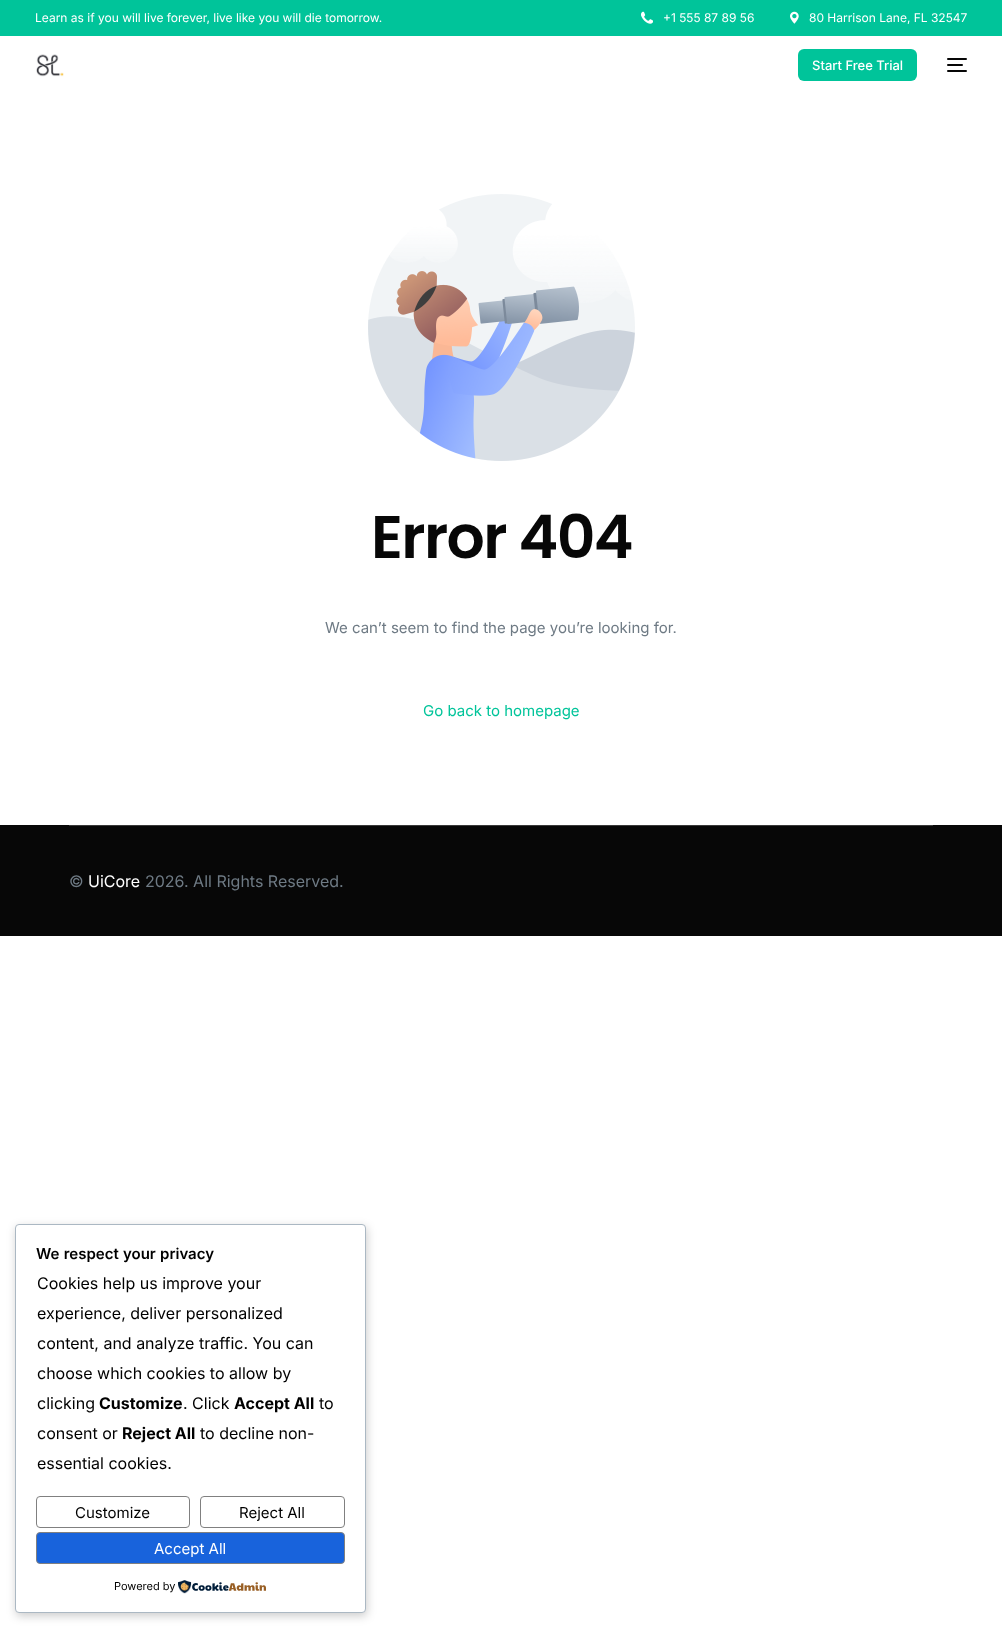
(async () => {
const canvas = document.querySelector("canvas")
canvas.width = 1002
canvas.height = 1633
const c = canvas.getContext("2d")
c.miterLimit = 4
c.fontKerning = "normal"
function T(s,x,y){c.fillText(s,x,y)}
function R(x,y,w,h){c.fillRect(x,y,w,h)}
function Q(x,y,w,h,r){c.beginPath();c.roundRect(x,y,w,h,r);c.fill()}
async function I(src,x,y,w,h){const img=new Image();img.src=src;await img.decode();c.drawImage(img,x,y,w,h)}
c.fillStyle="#fff"
R(0,0,1002,1633)
c.fillStyle="#00c49a"
R(0,0,1002,36)
c.font="12px Inter"
c.fillStyle="#fff"
T("Learn as if you will live forever, live like you will die tomorrow.",35,22)
await I("1.png",641,11,12,13)
T("+1 555 87 89 56",663,22)
await I("2.png",790,11,9,13)
T("80 Harrison Lane, FL 32547",809,22)
await I("3.png",36,54,28,23)
c.fillStyle="#00c49a"
Q(798,49,119,32,6)
c.font="500 13px Inter"
c.fillStyle="#fff"
T("Start Free Trial",812,70)
c.fillStyle="#070707"
Q(947,58,20,2,1)
Q(947,64,16,2,1)
Q(947,70,20,2,1)
await I("4.png",368,194,267,267)
c.letterSpacing="-1.6px"
c.font="600 60px Poppins"
T("Error 404",371,558)
c.letterSpacing="0px"
c.font="15px Inter"
c.fillStyle="#6e7a84"
T("We can’t seem to find the page you’re looking for.",325,633)
c.fillStyle="#00c49a"
T("Go back to homepage",423,716)
c.fillStyle="#070707"
R(0,825,1002,111)
c.fillStyle="#393939"
R(69,825,864,1)
c.font="16px Inter"
c.fillStyle="#6e7a84"
T("©",69,887)
c.fillStyle="#fff"
T("UiCore",88,887)
c.fillStyle="#6e7a84"
T("2026. All Rights Reserved.",145,887)
c.fillStyle="#00000033"
c.filter="blur(5px)"
c.beginPath()
c.roundRect(16,1227,351,389,4)
c.fill()
c.filter="none"
c.fillStyle="#fff"
c.beginPath()
c.roundRect(15.5,1224.5,350,388,3.5)
c.fill()
c.strokeStyle="#abb8c3"
c.stroke()
c.wordSpacing="0.5px"
c.font="600 15px Inter"
c.fillStyle="#000"
T("We respect your privacy",36,1259)
c.wordSpacing="0px"
c.font="16px Inter"
T("Cookies help us improve your",37,1289)
T("experience, deliver personalized",37,1319)
T("content, and analyze traffic. You can",37,1349)
T("choose which cookies to allow by",37,1379)
T("clicking",37,1409)
c.font="bold 16px Inter"
T("Customize",99,1409)
c.font="16px Inter"
T(". Click",183,1409)
c.font="bold 16px Inter"
T("Accept All",234,1409)
c.font="16px Inter"
T("to",319,1409)
T("consent or",37,1439)
c.font="bold 16px Inter"
T("Reject All",122,1439)
c.font="16px Inter"
T("to decline non-",200,1439)
T("essential cookies.",37,1469)
c.beginPath()
c.roundRect(36.5,1496.5,153,31,3.5)
c.strokeStyle="#808080"
c.stroke()
c.font="15px Inter"
T("Customize",75,1518)
c.beginPath()
c.roundRect(200.5,1496.5,144,31,3.5)
c.stroke()
T("Reject All",239,1518)
c.fillStyle="#1863dc"
c.beginPath()
c.roundRect(36.5,1532.5,308,31,3.5)
c.fill()
c.stroke()
c.fillStyle="#fff"
T("Accept All",154,1554)
c.font="11px Inter"
c.fillStyle="#000"
T("Powered by",114,1590)
await I("5.png",178,1580,88,14)
})()
